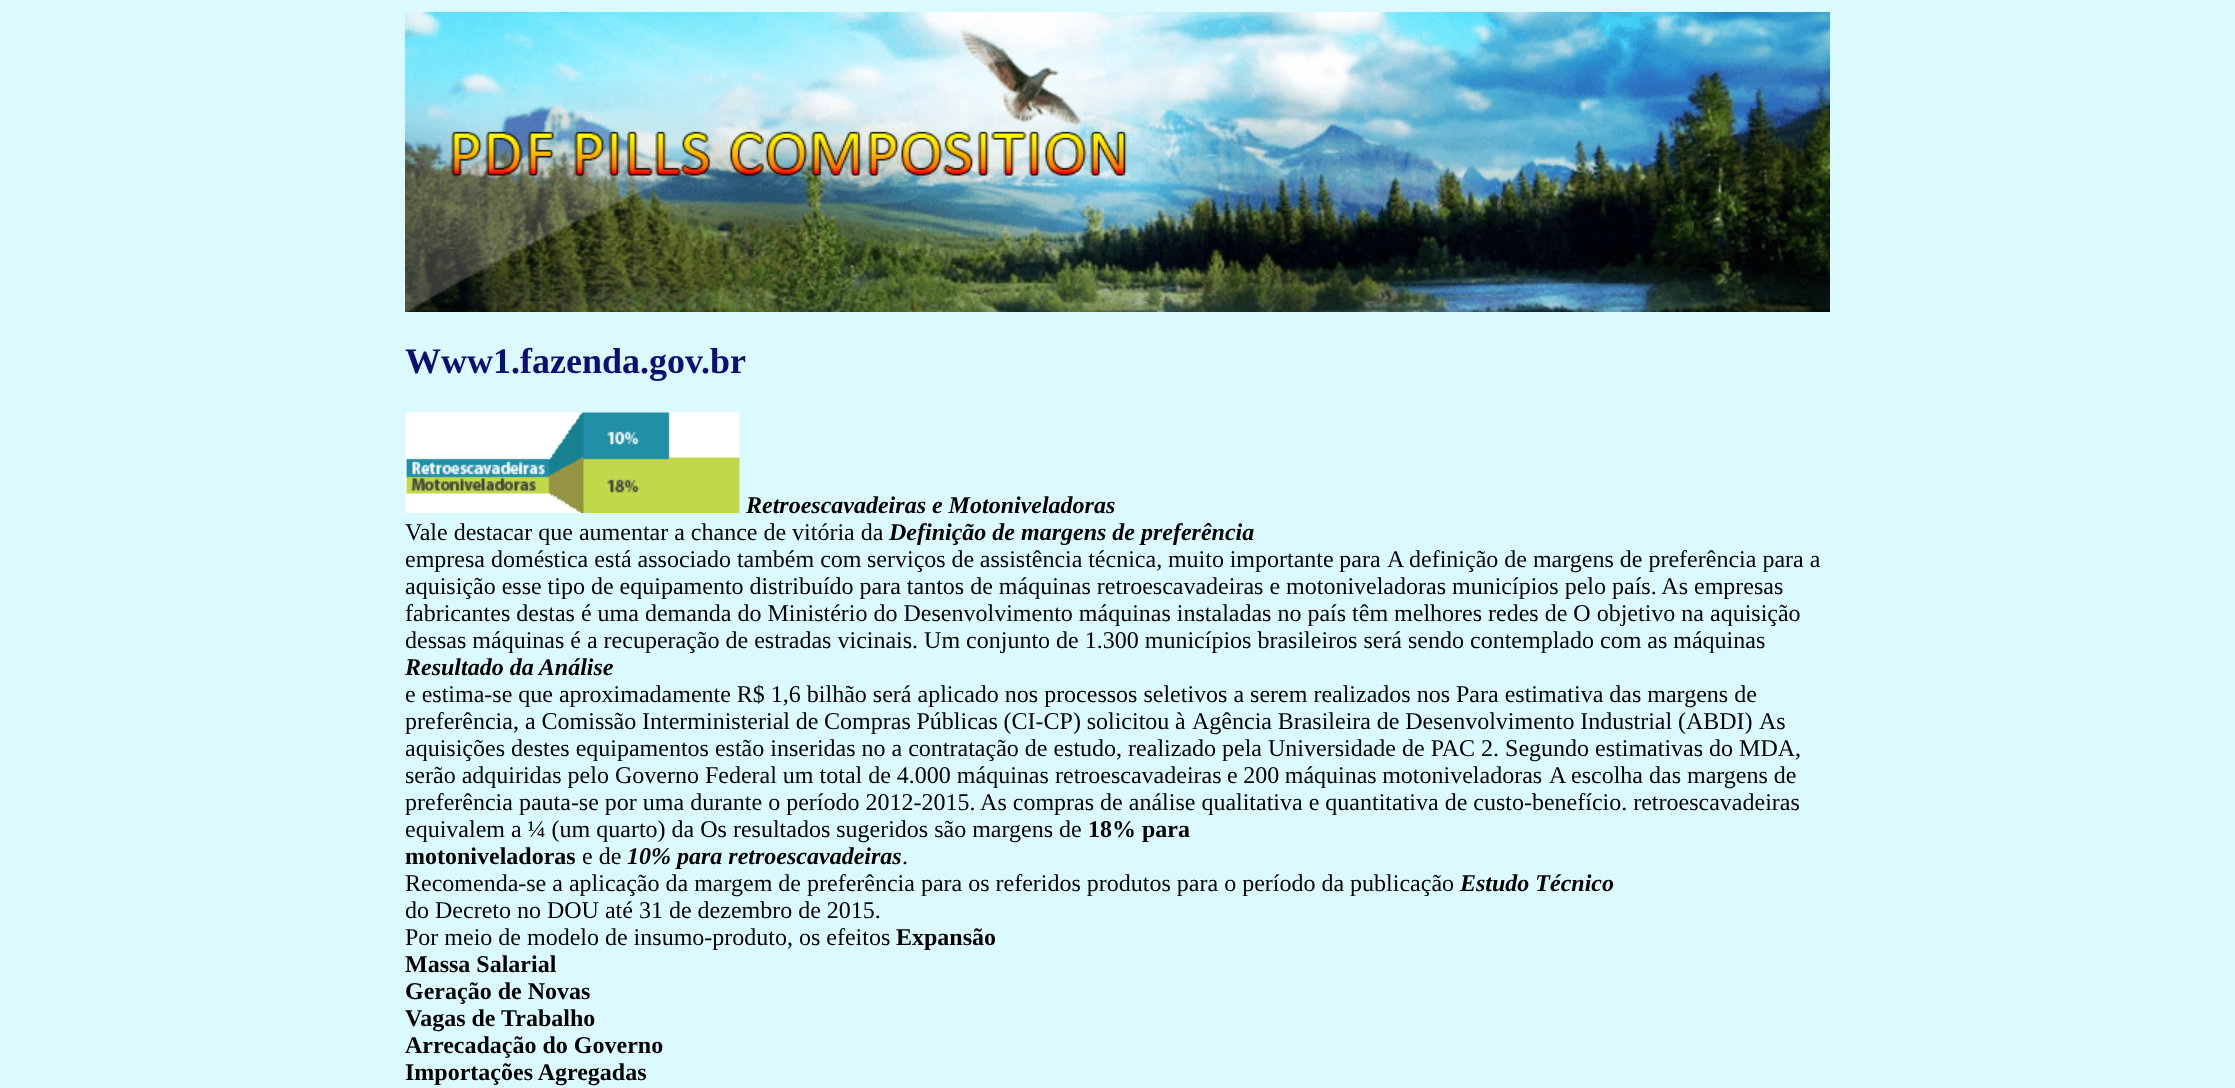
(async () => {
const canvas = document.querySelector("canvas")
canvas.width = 2235
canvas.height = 1088
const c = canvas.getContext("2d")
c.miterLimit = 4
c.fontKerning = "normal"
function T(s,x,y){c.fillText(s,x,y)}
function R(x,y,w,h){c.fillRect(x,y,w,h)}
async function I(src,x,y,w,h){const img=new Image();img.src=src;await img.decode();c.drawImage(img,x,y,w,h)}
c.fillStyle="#dbfaff"
R(0,0,2235,1088)
await I("1.png",405,12,1425,300)
await I("2.png",451,131,676,45)
c.font="bold 36px Liberation Serif"
c.fillStyle="#0a0f71"
T("Www1.fazenda.gov.br",405,373)
await I("3.png",405,412,335,101)
c.font="italic bold 24px Liberation Serif"
c.fillStyle="#000"
T("Retroescavadeiras e Motoniveladoras",746,513)
c.font="24px Liberation Serif"
T("Vale destacar que aumentar a chance de vitória da",405,540)
c.font="italic bold 24px Liberation Serif"
T("Definição de margens de preferência",889,540)
c.font="24px Liberation Serif"
T("empresa doméstica está associado também com",405,567)
c.wordSpacing="-0.25px"
T("serviços de assistência técnica, muito importante para",867,567)
c.wordSpacing="0px"
T("A definição de margens de preferência para a",1387,567)
T("aquisição esse tipo de equipamento distribuído para tantos de máquinas retroescavadeiras e motoniveladoras municípios pelo país. As empresas",405,594)
T("fabricantes destas é uma demanda do Ministério do Desenvolvimento máquinas instaladas no país têm melhores redes de O objetivo na aquisição",405,621)
T("dessas máquinas é a recuperação de estradas vicinais. Um conjunto de 1.300 municípios brasileiros será sendo contemplado com as máquinas",405,648)
c.font="italic bold 24px Liberation Serif"
T("Resultado da Análise",405,675)
c.font="24px Liberation Serif"
T("e estima-se que aproximadamente R$ 1,6 bilhão será aplicado nos processos seletivos a serem realizados nos Para estimativa das margens de",405,702)
T("preferência, a Comissão",405,729)
c.wordSpacing="-0.25px"
T("Interministerial de Compras Públicas (CI-CP) solicitou à",642,729)
T("Agência Brasileira de Desenvolvimento Industrial (ABDI)",1192,729)
c.wordSpacing="0px"
T("As",1759,729)
T("aquisições destes equipamentos estão inseridas no a contratação de estudo, realizado pela Universidade de PAC 2. Segundo estimativas do MDA,",405,756)
T("serão adquiridas pelo Governo Federal um total de 4.000 máquinas",405,783)
c.wordSpacing="-0.5px"
T("retroescavadeiras e 200 máquinas motoniveladoras",1055,783)
c.wordSpacing="0px"
T("A escolha das margens de",1549,783)
T("preferência pauta-se por uma durante o período 2012-2015. As compras de análise qualitativa e quantitativa de custo-benefício. retroescavadeiras",405,810)
T("equivalem a ¼ (um quarto) da Os resultados sugeridos são margens de",405,837)
c.font="bold 24px Liberation Serif"
T("18% para",1088,837)
T("motoniveladoras",405,864)
c.font="24px Liberation Serif"
T("e de",582,864)
c.font="italic bold 24px Liberation Serif"
T("10% para retroescavadeiras",627,864)
c.font="24px Liberation Serif"
T(".",902,864)
T("Recomenda-se a aplicação da margem de preferência para os referidos produtos para o período da publicação",405,891)
c.font="italic bold 24px Liberation Serif"
T("Estudo Técnico",1460,891)
c.font="24px Liberation Serif"
T("do Decreto no DOU até 31 de dezembro de 2015.",405,918)
T("Por meio de modelo de insumo-produto, os efeitos",405,945)
c.font="bold 24px Liberation Serif"
T("Expansão",896,945)
T("Massa Salarial",405,972)
T("Geração de Novas",405,999)
T("Vagas de Trabalho",405,1026)
T("Arrecadação do Governo",405,1053)
T("Importações Agregadas",405,1080)
})()
